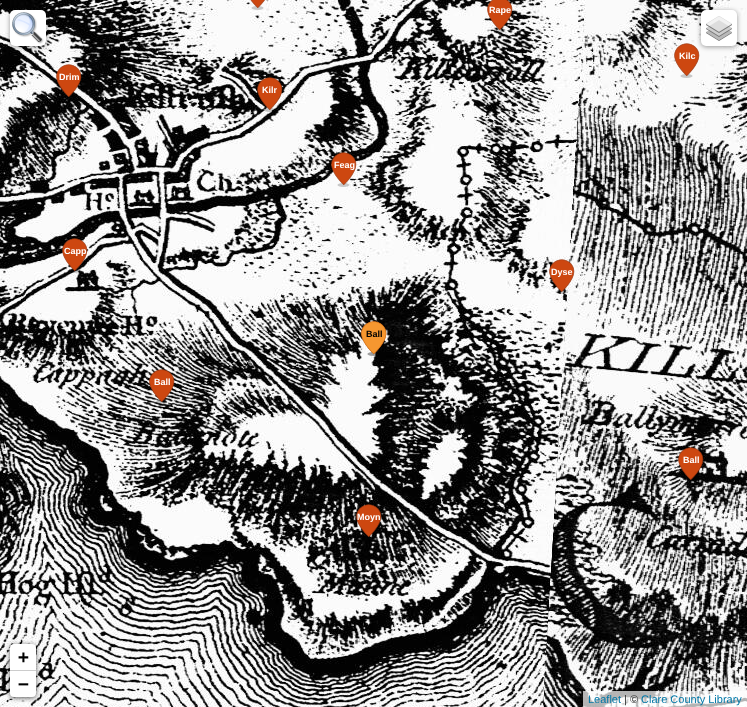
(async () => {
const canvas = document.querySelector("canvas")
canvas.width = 747
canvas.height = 707
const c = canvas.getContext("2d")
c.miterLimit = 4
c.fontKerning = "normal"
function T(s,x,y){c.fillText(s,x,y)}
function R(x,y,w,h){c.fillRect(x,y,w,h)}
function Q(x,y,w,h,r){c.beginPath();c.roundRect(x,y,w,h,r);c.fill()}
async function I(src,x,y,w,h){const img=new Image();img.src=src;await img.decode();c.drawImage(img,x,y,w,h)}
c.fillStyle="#fff"
R(0,0,747,707)
await I("1.png",0,0,26,64)
await I("2.png",26,0,256,64)
await I("3.png",282,0,256,64)
await I("4.png",538,0,209,64)
await I("5.png",0,64,26,256)
await I("6.png",26,64,256,256)
await I("7.png",282,64,256,256)
await I("8.png",538,64,209,256)
await I("9.png",0,320,26,256)
await I("10.png",26,320,256,256)
await I("11.png",282,320,256,256)
await I("12.png",538,320,209,256)
await I("13.png",0,576,26,131)
await I("14.png",26,576,256,131)
await I("15.png",282,576,256,131)
await I("16.png",538,576,209,131)
await I("17.png",250,0,15,10)
await I("18.png",487,0,26,32)
c.font="bold 9px Liberation Sans"
T("Rape",489,13)
await I("19.png",674,43,26,35)
T("Kilc",679,59)
await I("20.png",56,64,26,35)
T("Drim",59,80)
await I("21.png",257,77,26,35)
T("Kilr",262,93)
await I("22.png",331,152,26,35)
T("Feag",334,168)
await I("23.png",62,238,26,35)
T("Capp",64,254)
await I("24.png",549,259,26,35)
T("Dyse",551,275)
await I("25.png",361,321,26,35)
await I("26.png",361,321,26,35)
c.fillStyle="#000"
T("Ball",366,337)
await I("27.png",149,369,26,35)
c.fillStyle="#fff"
T("Ball",154,385)
await I("28.png",678,447,26,35)
T("Ball",683,463)
await I("29.png",356,504,26,34)
T("Moyn",357,520)
c.fillStyle="#00000066"
c.filter="blur(2.5px)"
c.beginPath()
c.roundRect(10,11,36,36,5)
c.fill()
c.filter="none"
c.fillStyle="#fff"
Q(10,10,36,36,5)
await I("30.png",12,12,32,32)
c.fillStyle="#00000066"
c.filter="blur(2.5px)"
c.beginPath()
c.roundRect(701,11,36,36,5)
c.fill()
c.filter="none"
c.fillStyle="#fff"
Q(701,10,36,36,5)
await I("31.png",706,16,26,25)
c.fillStyle="#000000a6"
c.filter="blur(2.5px)"
c.beginPath()
c.roundRect(10,645,26,53,4)
c.fill()
c.filter="none"
c.fillStyle="#fff"
c.beginPath()
c.roundRect(10,644,26,27,[4,4,0,0])
c.fill()
c.fillStyle="#ccc"
R(10,670,26,1)
c.font="bold 18px DejaVu Sans Mono"
c.fillStyle="#000"
T("+",18,663)
c.fillStyle="#fff"
c.beginPath()
c.roundRect(10,671,26,26,[0,0,4,4])
c.fill()
c.fillStyle="#000"
T("−",18,690)
c.fillStyle="#ffffffb3"
R(583,691,164,16)
c.font="11px Liberation Sans"
c.fillStyle="#0078a8"
T("Leaflet",588,703)
c.fillStyle="#333"
T("| ©",624,703)
c.fillStyle="#0078a8"
T("Clare County Library",641,703)
})()
